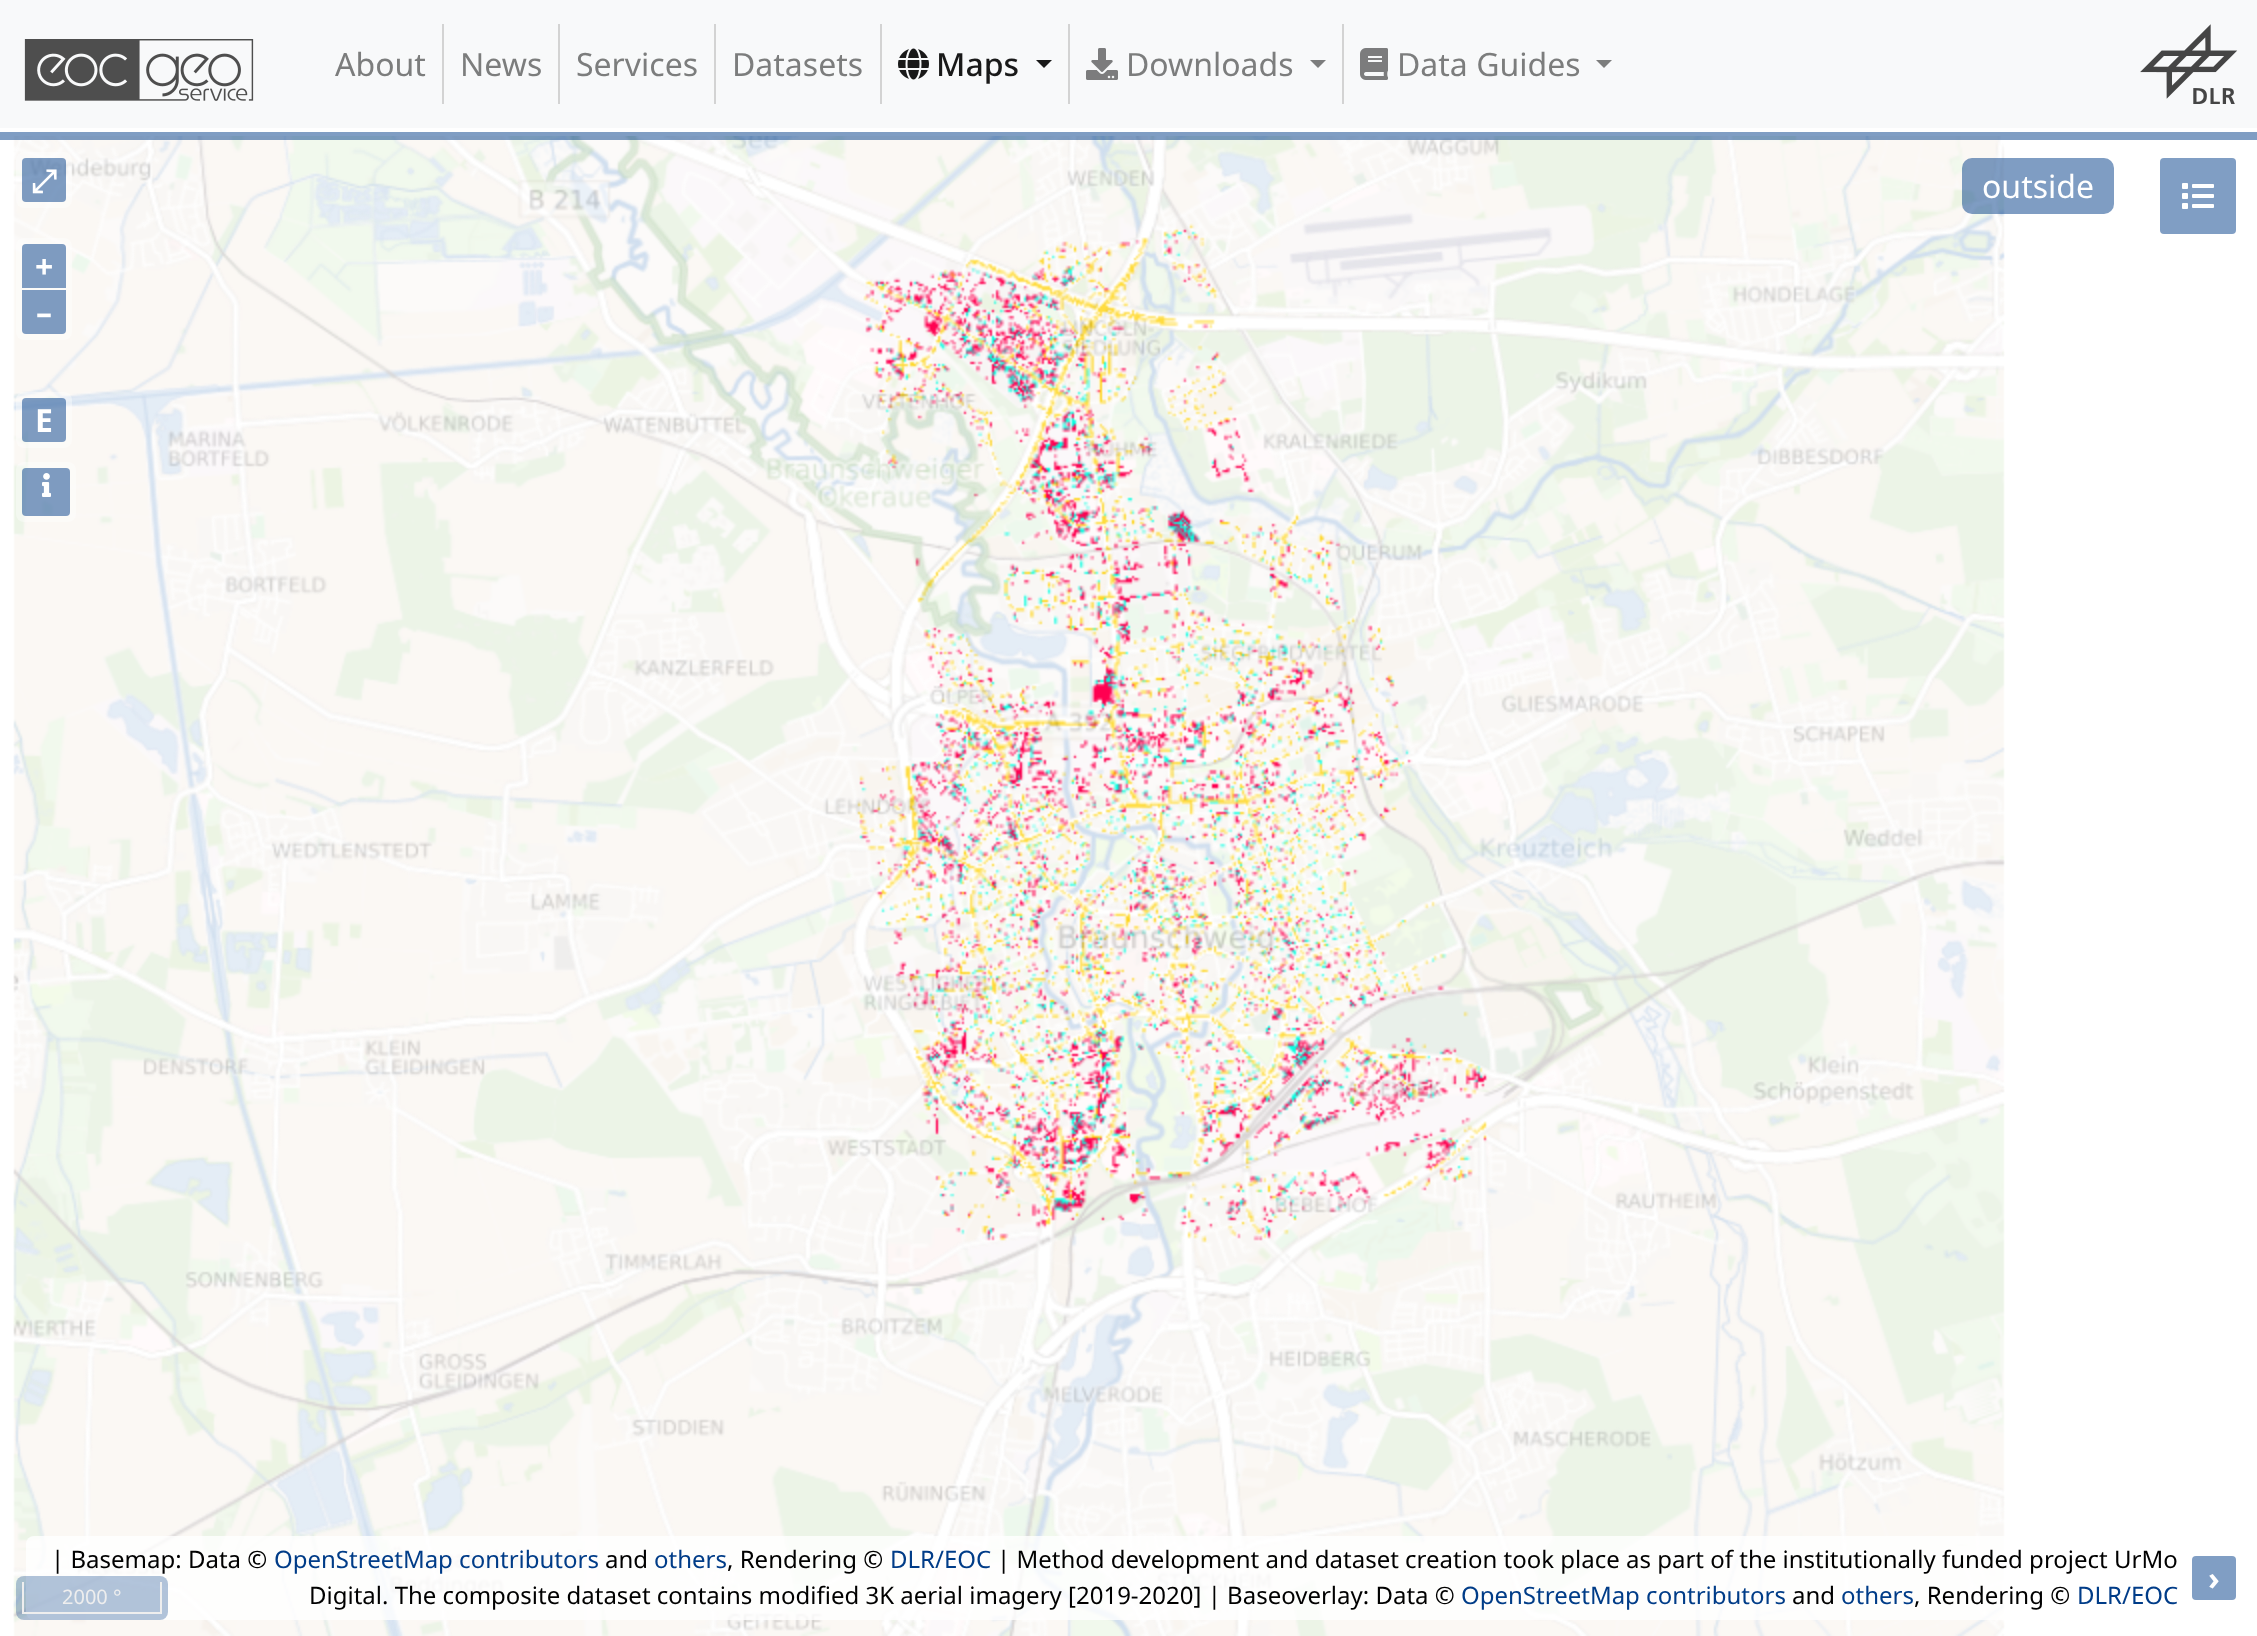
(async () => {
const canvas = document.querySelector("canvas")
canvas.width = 2257
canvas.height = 1636
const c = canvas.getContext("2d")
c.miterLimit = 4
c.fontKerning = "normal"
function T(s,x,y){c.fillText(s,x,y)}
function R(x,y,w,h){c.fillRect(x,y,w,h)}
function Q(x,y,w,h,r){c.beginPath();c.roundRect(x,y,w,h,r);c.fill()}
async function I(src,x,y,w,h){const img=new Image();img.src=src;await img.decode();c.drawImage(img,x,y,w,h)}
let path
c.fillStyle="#fff"
R(0,0,2257,1636)
c.fillStyle="#f8f9fa"
R(0,0,2257,128)
await I("1.png",24,39,230,62)
c.fillStyle="#d3d3d3"
R(442,24,2,80)
c.font="32px Noto Sans"
c.fillStyle="#7c7d7d"
T("About",335,76)
c.fillStyle="#d3d3d3"
R(558,24,2,80)
c.fillStyle="#7c7d7d"
T("News",460,76)
c.fillStyle="#d3d3d3"
R(714,24,2,80)
c.fillStyle="#7c7d7d"
T("Services",576,76)
c.fillStyle="#d3d3d3"
R(880,24,2,80)
c.fillStyle="#7c7d7d"
T("Datasets",732,76)
c.fillStyle="#d3d3d3"
R(1068,24,2,80)
await I("2.png",898,48,31,32)
c.font="500 32px Noto Sans"
c.fillStyle="#191919"
T("Maps",936,76)
path = new Path2D("M1036 60h16l-8 8z")
c.fill(path)
c.fillStyle="#d3d3d3"
R(1342,24,2,80)
await I("3.png",1086,48,32,32)
c.font="32px Noto Sans"
c.fillStyle="#7c7d7d"
T("Downloads",1126,76)
path = new Path2D("M1310 60h16l-8 8z")
c.fill(path)
await I("4.png",1360,48,28,32)
T("Data Guides",1397,76)
path = new Path2D("M1596 60h16l-8 8z")
c.fill(path)
await I("5.png",2140,24,98,80)
await I("6.png",13,136,1992,1500)
await I("8.png",857,223,631,1020)
await I("7.png",13,136,1992,1500)
c.fillStyle="#003c8880"
R(0,132,2257,8)
c.fillStyle="#ffffff66"
Q(16,152,56,56,8)
c.fillStyle="#003c8880"
Q(22,158,44,44,4)
c.font="bold 32px FreeSerif"
c.fillStyle="#fff"
T("⤢",31,192)
c.fillStyle="#003c8880"
Q(1962,158,152,56,10)
c.font="32px Noto Sans"
c.fillStyle="#fff"
T("outside",1982,198)
c.fillStyle="#809ec4"
Q(2160,158,76,76,4)
await I("9.png",2182,183,32,26)
c.fillStyle="#ffffff66"
Q(16,238,56,102,8)
c.fillStyle="#003c8880"
c.beginPath()
c.roundRect(22,244,44,44,[4,4,0,0])
c.fill()
c.font="bold 32px Noto Sans"
c.fillStyle="#fff"
T("+",35,278)
c.fillStyle="#7e9bc0"
c.beginPath()
c.roundRect(22,290,44,44,[0,0,4,4])
c.fill()
c.fillStyle="#fff"
T("–",36,324)
c.fillStyle="#ffffff66"
Q(16,392,56,56,8)
c.fillStyle="#003c8880"
Q(22,398,44,44,4)
c.fillStyle="#fff"
T("E",35,432)
c.fillStyle="#ffffff66"
Q(16,462,60,60,8)
c.fillStyle="#003c8880"
Q(22,468,48,48,4)
await I("10.png",42,473,9,24)
c.fillStyle="#ffffffcc"
Q(26,1536,2216,84,8)
c.font="24px Noto Sans"
c.fillStyle="#000"
T("| Basemap: Data ©",51,1568)
c.fillStyle="#003c88"
T("OpenStreetMap contributors",274,1568)
c.fillStyle="#000"
T("and",605,1568)
c.fillStyle="#003c88"
T("others",654,1568)
c.fillStyle="#000"
T(", Rendering ©",727,1568)
c.fillStyle="#003c88"
T("DLR/EOC",890,1568)
c.fillStyle="#000"
T("| Method development and dataset creation took place as part of the institutionally funded project UrMo",997,1568)
T("Digital. The composite dataset contains modified 3K aerial imagery [2019-2020] | Baseoverlay: Data ©",309,1604)
c.fillStyle="#003c88"
T("OpenStreetMap contributors",1461,1604)
c.fillStyle="#000"
T("and",1792,1604)
c.fillStyle="#003c88"
T("others",1841,1604)
c.fillStyle="#000"
T(", Rendering ©",1914,1604)
c.fillStyle="#003c88"
T("DLR/EOC",2077,1604)
c.fillStyle="#809ec4"
Q(2192,1556,44,44,4)
c.font="bold 32px Noto Sans"
c.fillStyle="#fff"
T("›",2208,1590)
c.fillStyle="#003c884d"
Q(16,1576,152,44,8)
c.fillStyle="#eee"
R(160,1582,2,32)
R(22,1612,140,2)
R(22,1582,2,32)
c.font="20px Noto Sans"
T("2000 °",62,1604)
})()
